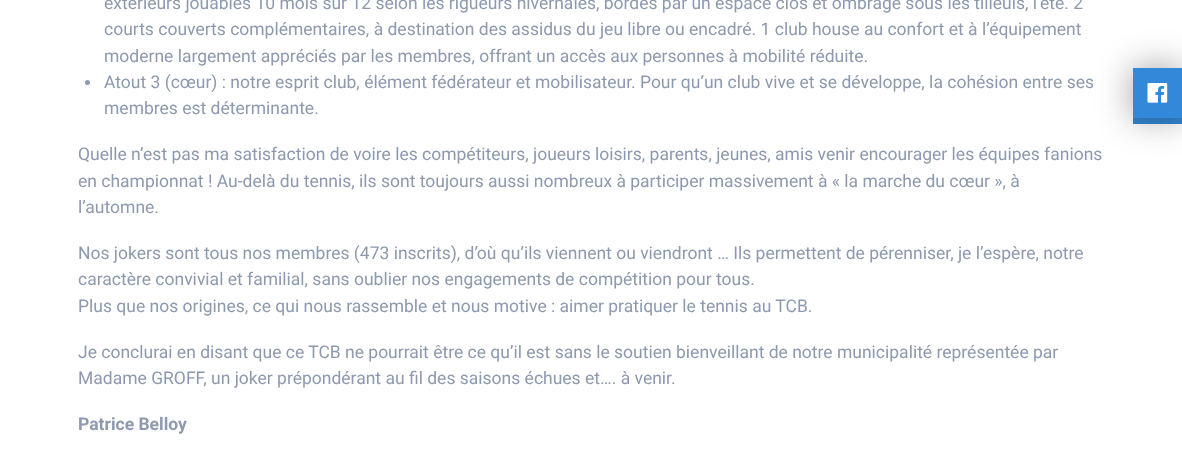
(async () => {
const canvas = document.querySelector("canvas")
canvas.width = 1182
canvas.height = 452
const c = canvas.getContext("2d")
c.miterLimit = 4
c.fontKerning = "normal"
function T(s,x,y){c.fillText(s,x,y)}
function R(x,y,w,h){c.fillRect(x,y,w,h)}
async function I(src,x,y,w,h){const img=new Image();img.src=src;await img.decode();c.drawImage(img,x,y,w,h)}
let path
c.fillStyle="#fff"
R(0,0,1182,452)
c.font="17.5px Roboto"
c.fillStyle="#8d99ae"
T("extérieurs jouables 10 mois sur 12 selon les rigueurs hivernales, bordés par un espace clos et ombragé sous les tilleuls, l’été. 2",104,9)
T("courts couverts complémentaires, à destination des assidus du jeu libre ou encadré. 1 club house au confort et à l’équipement",104,35)
T("moderne largement appréciés par les membres, offrant un accès aux personnes à mobilité réduite.",104,62)
c.beginPath()
c.arc(87.5,82.5,2.5,0,7)
c.fill()
T("Atout 3 (cœur) : notre esprit club, élément fédérateur et mobilisateur. Pour qu’un club vive et se développe, la cohésion entre ses",104,88)
T("membres est déterminante.",104,114)
T("Quelle n’est pas ma satisfaction de voire les compétiteurs, joueurs loisirs, parents, jeunes, amis venir encourager les équipes fanions",78,160)
T("en championnat ! Au-delà du tennis, ils sont toujours aussi nombreux à participer massivement à « la marche du cœur », à",78,187)
T("l’automne.",78,213)
T("Nos jokers sont tous nos membres (473 inscrits), d’où qu’ils viennent ou viendront … Ils permettent de pérenniser, je l’espère, notre",78,259)
T("caractère convivial et familial, sans oublier nos engagements de compétition pour tous.",78,285)
T("Plus que nos origines, ce qui nous rassemble et nous motive : aimer pratiquer le tennis au TCB.",78,312)
T("Je conclurai en disant que ce TCB ne pourrait être ce qu’il est sans le soutien bienveillant de notre municipalité représentée par",78,358)
T("Madame GROFF, un joker prépondérant au fil des saisons échues et…. à venir.",78,384)
c.font="bold 17.5px Roboto"
T("Patrice Belloy",78,430)
c.fillStyle="#3487d2"
path = new Path2D("M1133 118v6h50v-50h-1v44z")
c.fill(path)
c.fillStyle="#00000061"
c.filter="blur(17.5px)"
c.beginPath()
c.rect(1133,68,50,50)
c.fill()
c.filter="none"
c.fillStyle="#3289d9"
R(1133,68,49,50)
await I("1.png",1147,83,21,20)
})()
